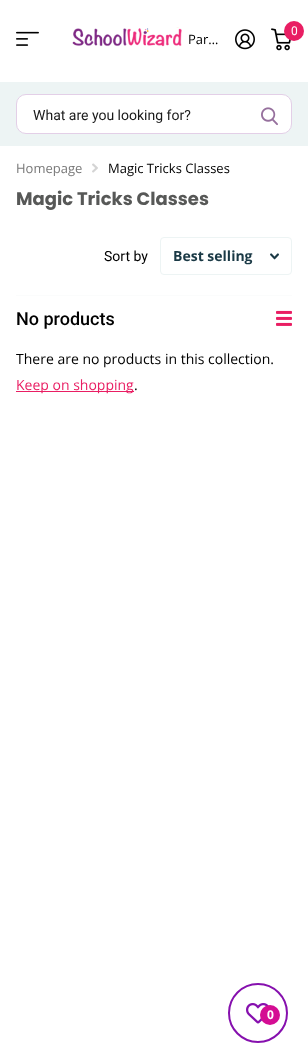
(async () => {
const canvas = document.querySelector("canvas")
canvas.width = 308
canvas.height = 1063
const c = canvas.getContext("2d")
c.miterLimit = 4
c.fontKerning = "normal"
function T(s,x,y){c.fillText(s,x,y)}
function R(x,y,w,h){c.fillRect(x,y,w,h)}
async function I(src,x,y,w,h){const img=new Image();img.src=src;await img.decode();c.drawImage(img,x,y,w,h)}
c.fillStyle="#fff"
R(0,0,308,1063)
await I("1.png",16,31,23,15)
await I("2.png",72,27,110,20)
c.font="13px Open Sans"
c.fillStyle="#000"
T("Par…",188,44)
await I("3.png",235,29,20,21)
await I("4.png",271,28,20,23)
c.fillStyle="#e91e63"
c.beginPath()
c.arc(294,31,10,0,7)
c.fill()
c.font="12px Roboto"
c.fillStyle="#fff"
T("0",291,35)
c.fillStyle="#edf4f4"
R(0,82,308,64)
c.fillStyle="#fff"
c.beginPath()
c.roundRect(16.5,94.5,275,39,9.5)
c.fill()
c.strokeStyle="#e3cfe7"
c.stroke()
c.font="14px Roboto"
c.fillStyle="#1a1a1a"
T("What are you looking for?",33,120)
await I("5.png",261,107,17,19)
c.font="13px Open Sans"
c.fillStyle="#787878"
T("Homepage",16,173)
await I("6.png",92,163,6,10)
c.fillStyle="#000"
T("Magic Tricks Classes",108,173)
c.font="bold 18px Poppins"
c.fillStyle="#575857"
T("Magic Tricks Classes",16,205)
c.font="14px Roboto"
c.fillStyle="#000"
T("Sort by",104,261)
c.beginPath()
c.roundRect(160.5,237.5,131,37,3.5)
c.strokeStyle="#edf4f4"
c.stroke()
c.font="bold 14px Open Sans"
c.fillStyle="#1a3945"
T("Best selling",173,261)
await I("7.png",270,253,9,7)
c.fillStyle="#fbfcfc"
R(16,295,276,1)
c.font="500 18px Roboto"
c.fillStyle="#000"
T("No products",16,325)
await I("8.png",276,310,16,16)
c.font="14px Open Sans"
T("There are no products in this collection.",16,364)
c.fillStyle="#e91e63"
R(16,391,118,1)
T("Keep on shopping",16,390)
c.fillStyle="#000"
T(".",134,390)
c.beginPath()
c.arc(258,1013,29,0,7)
c.strokeStyle="#8610ae"
c.lineWidth=2
c.stroke()
await I("9.png",246,1003,23,21)
c.fillStyle="#d40d93"
c.beginPath()
c.arc(270,1015,10,0,7)
c.fill()
c.font="bold 12px Open Sans"
c.fillStyle="#fff"
T("0",267,1019)
})()
